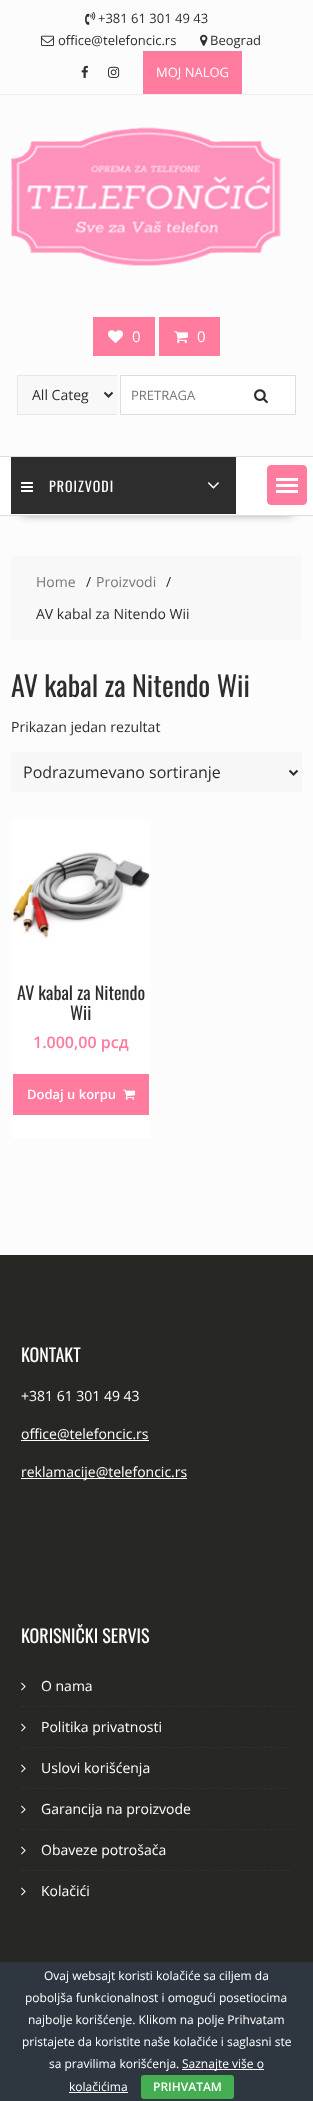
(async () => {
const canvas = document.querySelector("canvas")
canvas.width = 313
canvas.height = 2101
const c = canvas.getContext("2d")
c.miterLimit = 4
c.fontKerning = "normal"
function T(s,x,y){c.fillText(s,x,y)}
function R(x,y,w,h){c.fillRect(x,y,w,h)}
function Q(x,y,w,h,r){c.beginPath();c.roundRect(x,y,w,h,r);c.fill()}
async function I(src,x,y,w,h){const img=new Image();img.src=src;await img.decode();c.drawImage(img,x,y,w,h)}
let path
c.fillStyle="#fcfcfc"
R(0,0,313,2101)
c.fillStyle="#eee"
R(0,94,313,1)
await I("1.png",85,12,11,13)
c.font="13px Open Sans"
c.fillStyle="#2d2d2d"
T("+381 61 301 49 43",98,23)
await I("2.png",41,35,13,11)
T("office@telefoncic.rs",58,45)
await I("3.png",200,34,8,12)
T("Beograd",210,45)
await I("4.png",81,65,7,13)
await I("5.png",108,66,12,12)
c.fillStyle="#ff7c9f"
R(143,51,99,43)
c.fillStyle="#fff"
T("MOJ NALOG",156,77)
await I("6.png",11,127,270,139)
c.fillStyle="#ff7c9f"
R(93,317,62,39)
await I("7.png",108,330,15,13)
c.font="15px Open Sans"
c.fillStyle="#fff"
T("0",132,342)
c.fillStyle="#ff7c9f"
R(159,317,61,39)
await I("8.png",174,331,14,12)
c.fillStyle="#fff"
T("0",197,342)
c.fillStyle="#f8f8f8"
R(18,376,99,38)
c.fillStyle="#e7e7e7"
R(17,375,100,1)
R(17,414,100,1)
R(17,375,1,40)
path = new Path2D("M104.5 392.5l4 4l4-4")
c.strokeStyle="#2d2d2d"
c.lineWidth=2
c.stroke(path)
c.font="14px Open Sans"
c.fillStyle="#2d2d2d"
T("All Categ",32,400)
c.fillStyle="#fff"
c.beginPath()
c.rect(120.5,375.5,175,39)
c.fill()
c.strokeStyle="#ddd"
c.lineWidth=1
c.stroke()
c.font="13px Open Sans"
c.fillStyle="#777"
T("PRETRAGA",131,400)
await I("9.png",254,389,14,15)
c.fillStyle="#000000bf"
c.filter="blur(5.5px)"
c.beginPath()
c.rect(21,494,271,18)
c.fill()
c.filter="none"
c.fillStyle="#fff"
R(0,457,313,58)
c.fillStyle="#dedede"
R(0,456,313,1)
R(0,515,313,1)
c.fillStyle="#2d2d2d"
R(11,457,225,57)
await I("10.png",21,482,12,10)
c.letterSpacing="1px"
c.font="14px Oswald"
c.fillStyle="#fff"
T("PROIZVODI",49,492)
await I("11.png",207,482,12,7)
c.fillStyle="#ff7c9f"
c.beginPath()
c.roundRect(267.5,465.5,39,39,3.5)
c.fill()
c.strokeStyle="#ff7c9f"
c.stroke()
c.fillStyle="#fff"
R(276,490,22,3)
R(276,484,22,3)
R(276,478,22,3)
c.fillStyle="#f8f8f8"
R(11,556,291,84)
c.letterSpacing="0px"
c.font="14px Open Sans"
c.fillStyle="#777"
T("Home",36,587)
c.fillStyle="#2d2d2d"
T("/",86,587)
c.fillStyle="#777"
T("Proizvodi",96,587)
c.fillStyle="#2d2d2d"
T("/",166,587)
T("AV kabal za Nitendo Wii",36,619)
c.font="28px Oswald"
T("AV kabal za Nitendo Wii",11,697)
c.font="14px Open Sans"
T("Prikazan jedan rezultat",11,732)
c.fillStyle="#f7f7f7"
R(11,752,291,40)
path = new Path2D("M289.5 770.5l4 4l4-4")
c.strokeStyle="#2d2d2d"
c.lineWidth=2
c.stroke(path)
c.font="16px Open Sans"
c.fillStyle="#2d2d2d"
T("Podrazumevano sortiranje",23,778)
c.fillStyle="#fff"
R(11,820,140,318)
await I("12.png",11,852,139,87)
c.font="18px Oswald"
c.fillStyle="#2d2d2d"
T("AV kabal za Nitendo",17,1000)
T("Wii",70,1020)
c.font="600 16px Open Sans"
c.fillStyle="#ff7c9f"
T("1.000,00 рсд",33,1048)
R(13,1074,136,41)
c.font="600 13px Open Sans"
c.fillStyle="#fff"
T("Dodaj u korpu",27,1099)
await I("13.png",123,1089,13,11)
c.fillStyle="#272823"
R(0,1255,313,707)
c.font="18px Oswald"
c.fillStyle="#fff"
T("KONTAKT",21,1362)
c.font="14px Open Sans"
T("+381 61 301 49 43",21,1401)
R(21,1440,128,1)
T("office@telefoncic.rs",21,1439)
R(21,1478,166,1)
T("reklamacije@telefoncic.rs",21,1477)
c.font="18px Oswald"
T("KORISNIČKI SERVIS",21,1643)
await I("14.png",21,1682,5,9)
c.font="14px Open Sans"
T("O nama",41,1691)
path = new Path2D("M21 1706.5h271")
c.strokeStyle="#303030"
c.lineWidth=1
c.setLineDash([3,1.96])
c.stroke(path)
await I("14.png",21,1723,5,9)
T("Politika privatnosti",41,1732)
path = new Path2D("M21 1747.5h271")
c.stroke(path)
await I("14.png",21,1764,5,9)
T("Uslovi korišćenja",41,1773)
path = new Path2D("M21 1788.5h271")
c.stroke(path)
await I("14.png",21,1805,5,9)
T("Garancija na proizvode",41,1814)
path = new Path2D("M21 1829.5h271")
c.stroke(path)
await I("14.png",21,1846,5,9)
T("Obaveze potrošača",41,1855)
path = new Path2D("M21 1870.5h271")
c.stroke(path)
await I("14.png",21,1887,5,9)
T("Kolačići",41,1896)
c.fillStyle="#2e363f"
R(0,1962,313,139)
c.font="12px Open Sans"
c.fillStyle="#fff"
T("Ovaj websajt koristi kolačiće sa ciljem da",44,1980)
T("poboljša funkcionalnost i omogući posetiocima",25,2002)
T("najbolje korišćenje. Klikom na polje Prihvatam",28,2024)
T("pristajete da koristite naše kolačiće i saglasni ste",22,2046)
T("sa pravilima korišćenja.",49,2068)
R(182,2069,82,1)
T("Saznajte više o",182,2068)
T("kolačićima",69,2091)
R(69,2092,59,1)
c.fillStyle="#45ae52"
Q(141,2075,93,24,3)
c.font="600 12px Open Sans"
c.fillStyle="#fff"
T("PRIHVATAM",153,2091)
})()
